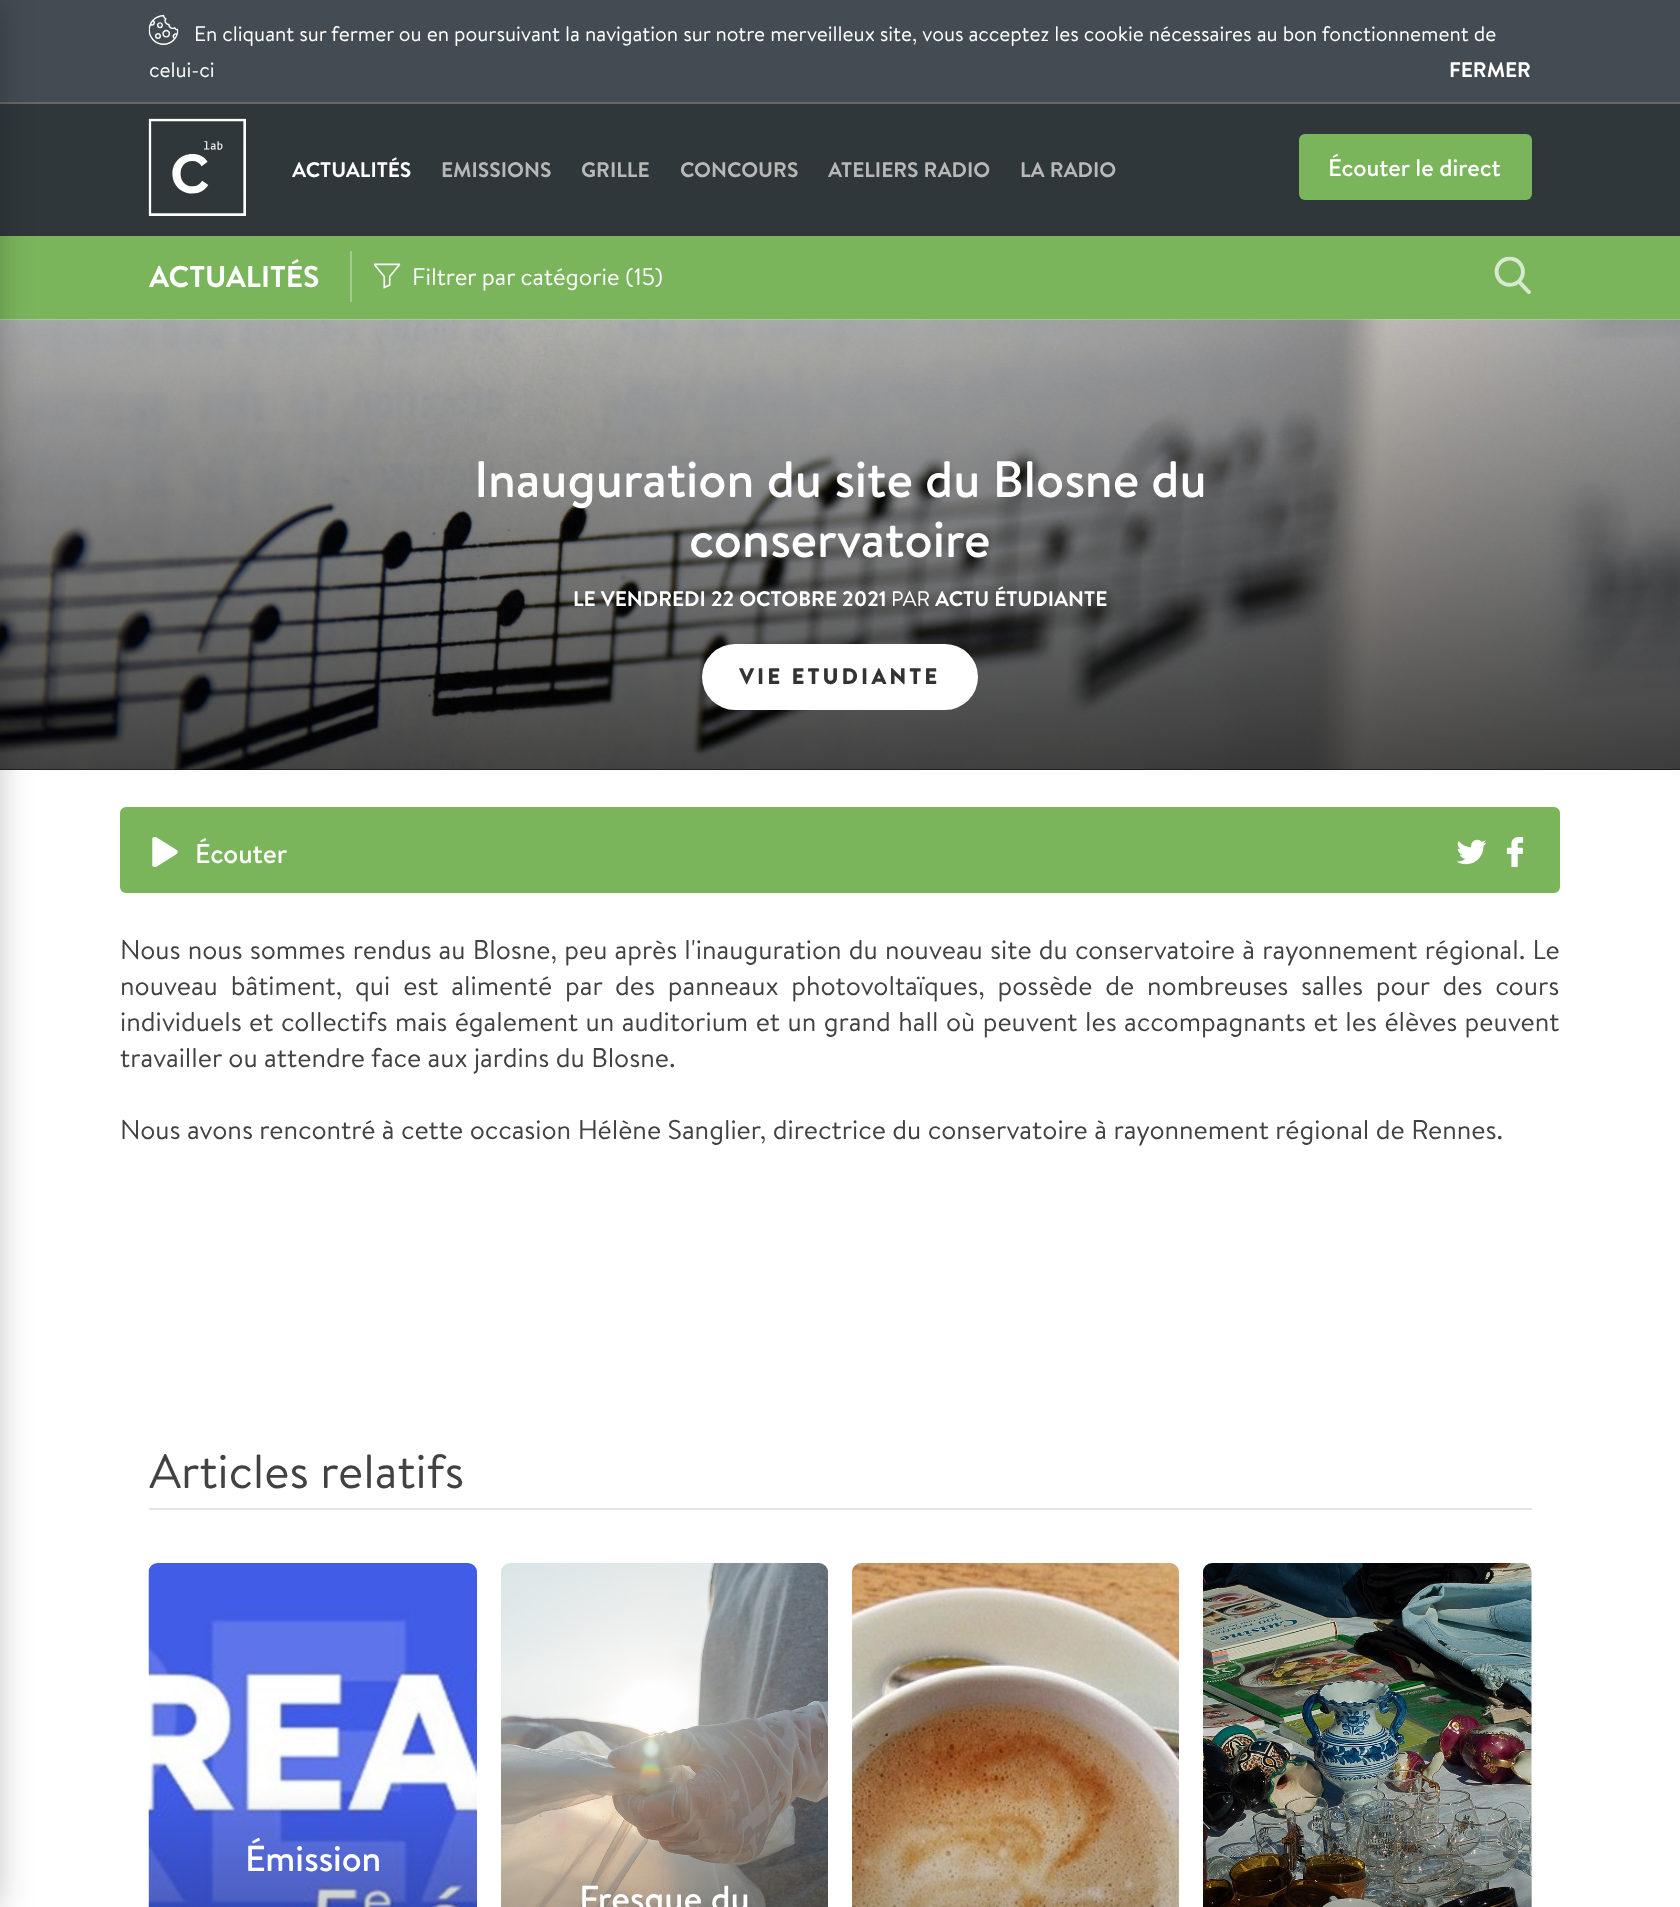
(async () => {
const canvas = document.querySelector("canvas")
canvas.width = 1680
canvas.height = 1907
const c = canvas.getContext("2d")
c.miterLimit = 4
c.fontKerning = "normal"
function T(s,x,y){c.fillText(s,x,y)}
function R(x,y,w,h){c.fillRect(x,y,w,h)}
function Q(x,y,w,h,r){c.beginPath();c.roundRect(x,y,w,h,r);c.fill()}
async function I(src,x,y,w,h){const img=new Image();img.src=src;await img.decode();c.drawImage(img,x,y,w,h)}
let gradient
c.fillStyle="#fff"
R(0,0,1680,1907)
c.fillStyle="#424c52"
R(0,0,1680,102)
c.fillStyle="#676767"
R(0,102,1680,2)
c.fillStyle="#30373b"
R(0,104,1680,132)
c.fillStyle="#7ab55c"
R(0,236,1680,84)
c.fillStyle="#000"
R(0,769,1680,1)
await I("5.png",0,319,1680,451)
gradient = c.createLinearGradient(840,94,840,770)
gradient.addColorStop(0,"#00000000")
gradient.addColorStop(1,"#000000b3")
c.fillStyle = gradient
R(0,320,1680,450)
c.fillStyle="#00000038"
c.filter="blur(16px)"
c.beginPath()
c.rect(-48,0,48,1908)
c.fill()
c.filter="none"
await I("1.png",148,15,31,30)
c.font="21px 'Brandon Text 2'"
c.fillStyle="#fff"
T("En cliquant sur fermer ou en poursuivant la navigation sur notre merveilleux site, vous acceptez les cookie nécessaires au bon fonctionnement de",194,41)
T("celui-ci",149,77)
c.font="21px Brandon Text"
T("FERMER",1449,77)
await I("2.png",148,118,98,98)
T("ACTUALITÉS",292,177)
c.fillStyle="#b8b8b8"
T("EMISSIONS",441,177)
T("GRILLE",581,177)
T("CONCOURS",680,177)
T("ATELIERS RADIO",828,177)
T("LA RADIO",1020,177)
c.fillStyle="#7ab55c"
Q(1299,134,233,66,6)
c.font="24px 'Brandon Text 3'"
c.fillStyle="#fff"
T("Écouter le direct",1328,176)
c.fillStyle="#a2cb8d"
R(350,251,2,51)
c.font="30px Brandon Text"
c.fillStyle="#fff"
T("ACTUALITÉS",149,287)
await I("3.png",373,263,28,26)
c.font="24px 'Brandon Text 2'"
T("Filtrer par catégorie (15)",412,285)
await I("4.png",1494,256,37,38)
c.font="51px 'Brandon Text 3'"
T("Inauguration du site du Blosne du",474,497)
T("conservatoire",689,557)
c.font="21px Brandon Text"
T("LE VENDREDI 22 OCTOBRE 2021",573,606)
c.font="21px 'Brandon Text 2'"
T("PAR",891,606)
c.font="21px Brandon Text"
T("ACTU ÉTUDIANTE",935,606)
Q(702,644,276,66,33)
c.letterSpacing="3px"
c.font="500 22.5px Brandon Text"
c.fillStyle="#333"
T("VIE ETUDIANTE",739,684)
c.fillStyle="#7ab55c"
Q(120,807,1440,86,6)
await I("6.png",152,837,26,30)
c.letterSpacing="0px"
c.font="27px 'Brandon Text 3'"
c.fillStyle="#fff"
T("Écouter",195,863)
await I("7.png",1457,839,29,26)
await I("8.png",1506,837,18,30)
c.wordSpacing="0.75px"
c.font="27px 'Brandon Text 2'"
c.fillStyle="#424243"
T("Nous nous sommes rendus au Blosne, peu après l'inauguration du nouveau site du conservatoire à rayonnement régional. Le",120,959)
c.wordSpacing="6.4px"
T("nouveau bâtiment, qui est alimenté par des panneaux photovoltaïques, possède de nombreuses salles pour des cours",120,995)
c.wordSpacing="1px"
T("individuels et collectifs mais également un auditorium et un grand hall où peuvent les accompagnants et les élèves peuvent",120,1031)
c.wordSpacing="0px"
T("travailler ou attendre face aux jardins du Blosne.",120,1067)
T("Nous avons rencontré à cette occasion Hélène Sanglier, directrice du conservatoire à rayonnement régional de Rennes.",120,1139)
c.fillStyle="#e4e4e4"
R(149,1508,1383,2)
c.font="48px 'Brandon Text 2'"
c.fillStyle="#424243"
T("Articles relatifs",149,1488)
await I("9.png",148,1563,329,344)
c.font="36px 'Brandon Text 3'"
c.fillStyle="#fff"
T("Émission",245,1871)
await I("10.png",852,1563,327,344)
await I("11.png",1203,1563,329,344)
gradient = c.createLinearGradient(1367,1788,1367,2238)
gradient.addColorStop(0,"#00000000")
gradient.addColorStop(1,"#000000b3")
c.fillStyle = gradient
R(1203,1802,329,105)
await I("12.png",501,1563,327,344)
c.fillStyle="#fff"
T("Fresque du",579,1911)
})()
